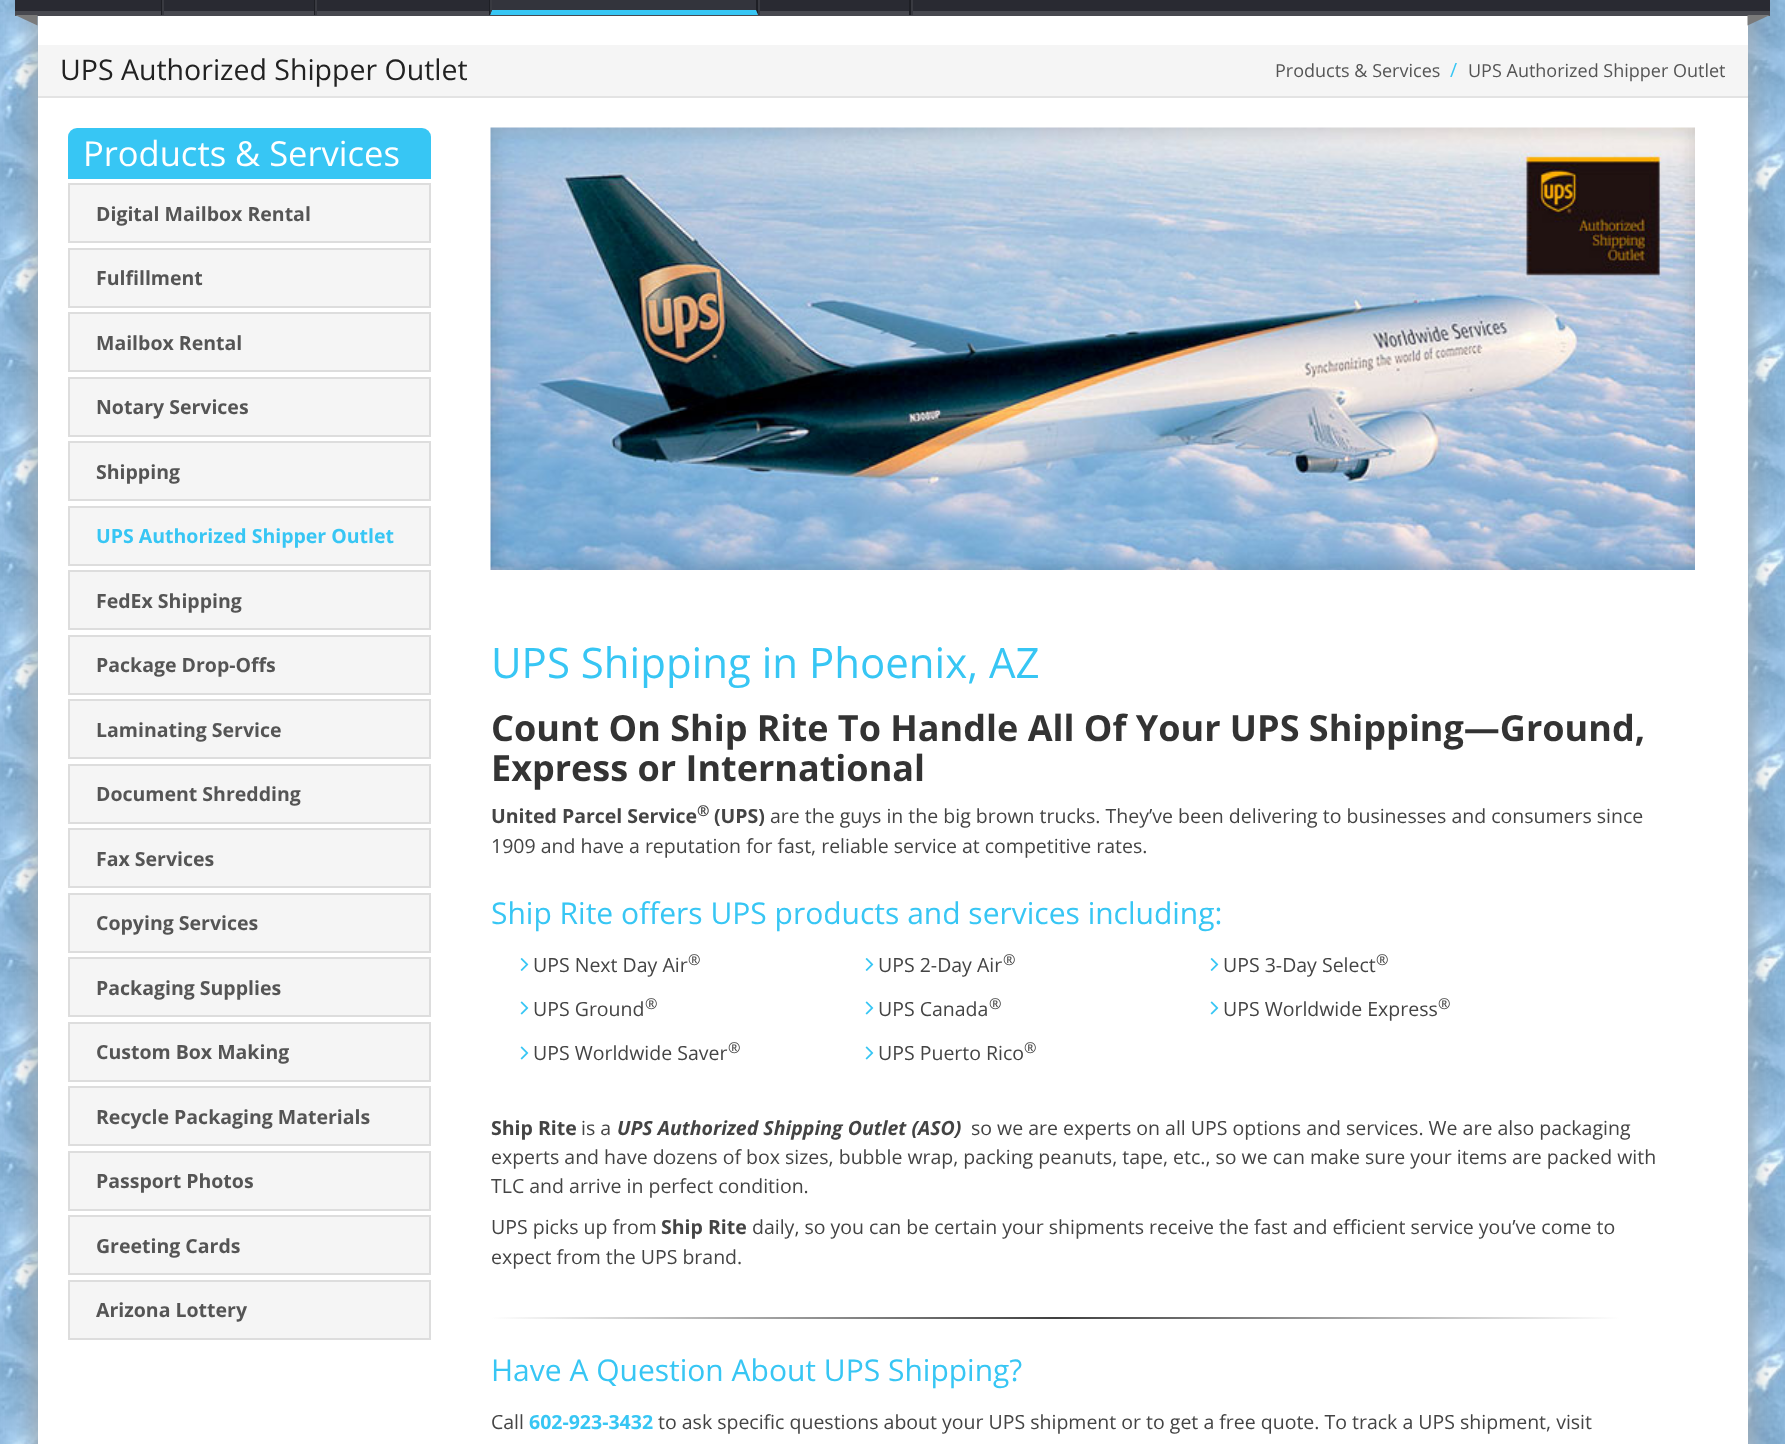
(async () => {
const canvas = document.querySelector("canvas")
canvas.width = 1785
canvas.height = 1444
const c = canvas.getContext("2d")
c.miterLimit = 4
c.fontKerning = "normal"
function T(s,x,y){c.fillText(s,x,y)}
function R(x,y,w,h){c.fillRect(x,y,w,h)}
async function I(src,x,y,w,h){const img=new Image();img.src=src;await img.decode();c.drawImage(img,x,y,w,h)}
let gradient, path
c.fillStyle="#fff"
R(0,0,1785,1444)
await I("1.png",0,0,1785,1444)
c.fillStyle="#a3a3a3"
c.filter="blur(15px)"
c.beginPath()
c.rect(38,-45,1710,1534)
c.fill()
c.filter="none"
c.fillStyle="#fff"
R(38,16,1710,1428)
c.fillStyle="#292a32"
R(15,0,1755,11)
c.fillStyle="#484950"
R(15,11,1755,5)
c.fillStyle="#1e1f25"
R(161,0,1,15)
R(314,0,1,15)
c.fillStyle="#393a41"
R(162,0,2,15)
c.fillStyle="#1e1f25"
R(489,0,2,15)
c.fillStyle="#393a41"
R(315,0,2,15)
c.fillStyle="#ffffff0d"
R(491,0,267,15)
c.fillStyle="#1e1f25"
path = new Path2D("M758-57v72l-2-5v-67z")
c.fill(path)
c.fillStyle="#37c6f4"
path = new Path2D("M758 15h-268l2-5h264z")
c.fill(path)
c.fillStyle="#393a41"
path = new Path2D("M490 15v-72h2v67z")
c.fill(path)
c.fillStyle="#1e1f25"
R(909,0,2,15)
c.fillStyle="#393a41"
R(758,0,2,15)
R(911,0,2,15)
c.fillStyle="#7a7a7a"
path = new Path2D("M37.5 15v10.5l-22.5-10.5z")
c.fill(path)
path = new Path2D("M1747.5 15h22.5l-22.5 10.5z")
c.fill(path)
c.fillStyle="#f5f5f5"
R(38,45,1710,51)
c.fillStyle="#e3e3e3"
R(38,96,1710,2)
c.font="28.5px Open Sans"
c.fillStyle="#222"
T("UPS Authorized Shipper Outlet",60,80)
c.font="18px Open Sans"
c.fillStyle="#555"
T("Products & Services",1275,77)
c.font="19.5px Open Sans"
c.fillStyle="#37c6f4"
T("/",1450,77)
c.font="18px Open Sans"
c.fillStyle="#555"
T("UPS Authorized Shipper Outlet",1468,77)
c.fillStyle="#37c6f4"
c.beginPath()
c.roundRect(68,128,363,51,[9,9,0,0])
c.fill()
c.font="34.5px Open Sans"
c.fillStyle="#fff"
T("Products & Services",83,166)
c.fillStyle="#f5f5f5"
c.beginPath()
c.rect(69,184,361,58)
c.fill()
c.strokeStyle="#ddd"
c.lineWidth=2
c.stroke()
c.font="bold 19.5px Open Sans"
c.fillStyle="#555"
T("Digital Mailbox Rental",96,221)
c.fillStyle="#f5f5f5"
c.beginPath()
c.rect(69,249,361,58)
c.fill()
c.stroke()
c.fillStyle="#555"
T("Fulfillment",96,285)
c.fillStyle="#f5f5f5"
c.beginPath()
c.rect(69,313,361,58)
c.fill()
c.stroke()
c.fillStyle="#555"
T("Mailbox Rental",96,350)
c.fillStyle="#f5f5f5"
c.beginPath()
c.rect(69,378,361,58)
c.fill()
c.stroke()
c.fillStyle="#555"
T("Notary Services",96,414)
c.fillStyle="#f5f5f5"
c.beginPath()
c.rect(69,442,361,58)
c.fill()
c.stroke()
c.fillStyle="#555"
T("Shipping",96,479)
c.fillStyle="#f5f5f5"
c.beginPath()
c.rect(69,507,361,58)
c.fill()
c.stroke()
c.fillStyle="#37c6f4"
T("UPS Authorized Shipper Outlet",96,543)
c.fillStyle="#f5f5f5"
c.beginPath()
c.rect(69,571,361,58)
c.fill()
c.stroke()
c.fillStyle="#555"
T("FedEx Shipping",96,608)
c.fillStyle="#f5f5f5"
c.beginPath()
c.rect(69,636,361,58)
c.fill()
c.stroke()
c.fillStyle="#555"
T("Package Drop-Offs",96,672)
c.fillStyle="#f5f5f5"
c.beginPath()
c.rect(69,700,361,58)
c.fill()
c.stroke()
c.fillStyle="#555"
T("Laminating Service",96,737)
c.fillStyle="#f5f5f5"
c.beginPath()
c.rect(69,765,361,58)
c.fill()
c.stroke()
c.fillStyle="#555"
T("Document Shredding",96,801)
c.fillStyle="#f5f5f5"
c.beginPath()
c.rect(69,829,361,58)
c.fill()
c.stroke()
c.fillStyle="#555"
T("Fax Services",96,866)
c.fillStyle="#f5f5f5"
c.beginPath()
c.rect(69,894,361,58)
c.fill()
c.stroke()
c.fillStyle="#555"
T("Copying Services",96,930)
c.fillStyle="#f5f5f5"
c.beginPath()
c.rect(69,958,361,58)
c.fill()
c.stroke()
c.fillStyle="#555"
T("Packaging Supplies",96,995)
c.fillStyle="#f5f5f5"
c.beginPath()
c.rect(69,1023,361,58)
c.fill()
c.stroke()
c.fillStyle="#555"
T("Custom Box Making",96,1059)
c.fillStyle="#f5f5f5"
c.beginPath()
c.rect(69,1087,361,58)
c.fill()
c.stroke()
c.fillStyle="#555"
T("Recycle Packaging Materials",96,1124)
c.fillStyle="#f5f5f5"
c.beginPath()
c.rect(69,1152,361,58)
c.fill()
c.stroke()
c.fillStyle="#555"
T("Passport Photos",96,1188)
c.fillStyle="#f5f5f5"
c.beginPath()
c.rect(69,1216,361,58)
c.fill()
c.stroke()
c.fillStyle="#555"
T("Greeting Cards",96,1253)
c.fillStyle="#f5f5f5"
c.beginPath()
c.rect(69,1281,361,58)
c.fill()
c.stroke()
c.fillStyle="#555"
T("Arizona Lottery",96,1317)
await I("2.png",490,127,1205,443)
c.font="42px Open Sans"
c.fillStyle="#37c6f4"
T("UPS Shipping in Phoenix, AZ",491,678)
c.font="bold 36px Open Sans"
c.fillStyle="#333"
T("Count On Ship Rite To Handle All Of Your UPS Shipping—Ground,",491,741)
T("Express or International",491,781)
c.font="bold 19.5px Open Sans"
c.fillStyle="#444"
T("United Parcel Service",491,823)
c.font="bold 15px Open Sans"
T("®",697,816)
c.font="bold 19.5px Open Sans"
T("(UPS)",714,823)
c.font="19.5px Open Sans"
T("are the guys in the big brown trucks. They’ve been delivering to businesses and consumers since",770,823)
T("1909 and have a reputation for fast, reliable service at competitive rates.",491,853)
c.font="30px Open Sans"
c.fillStyle="#37c6f4"
T("Ship Rite offers UPS products and services including:",491,924)
await I("3.png",520,958,9,13)
c.font="19.5px Open Sans"
c.fillStyle="#444"
T("UPS Next Day Air",533,972)
c.font="15px Open Sans"
T("®",688,965)
await I("3.png",865,958,9,13)
c.font="19.5px Open Sans"
T("UPS 2-Day Air",878,972)
c.font="15px Open Sans"
T("®",1003,965)
await I("3.png",1210,958,9,13)
c.font="19.5px Open Sans"
T("UPS 3-Day Select",1223,972)
c.font="15px Open Sans"
T("®",1376,965)
await I("4.png",520,1001,9,14)
c.font="19.5px Open Sans"
T("UPS Ground",533,1016)
c.font="15px Open Sans"
T("®",645,1009)
await I("4.png",865,1001,9,14)
c.font="19.5px Open Sans"
T("UPS Canada",878,1016)
c.font="15px Open Sans"
T("®",989,1009)
await I("4.png",1210,1001,9,14)
c.font="19.5px Open Sans"
T("UPS Worldwide Express",1223,1016)
c.font="15px Open Sans"
T("®",1438,1009)
await I("4.png",520,1046,9,14)
c.font="19.5px Open Sans"
T("UPS Worldwide Saver",533,1060)
c.font="15px Open Sans"
T("®",728,1053)
await I("4.png",865,1046,9,14)
c.font="19.5px Open Sans"
T("UPS Puerto Rico",878,1060)
c.font="15px Open Sans"
T("®",1024,1053)
c.font="bold 19.5px Open Sans"
T("Ship Rite",491,1135)
c.font="19.5px Open Sans"
T("is a",581,1135)
c.font="italic bold 19.5px Open Sans"
T("UPS Authorized Shipping Outlet (ASO)",617,1135)
c.font="19.5px Open Sans"
T("so we are experts on all UPS options and services. We are also packaging",971,1135)
T("experts and have dozens of box sizes, bubble wrap, packing peanuts, tape, etc., so we can make sure your items are packed with",491,1164)
T("TLC and arrive in perfect condition.",491,1193)
T("UPS picks up from",491,1234)
c.font="bold 19.5px Open Sans"
T("Ship Rite",661,1234)
c.font="19.5px Open Sans"
T("daily, so you can be certain your shipments receive the fast and efficient service you’ve come to",752,1234)
T("expect from the UPS brand.",491,1264)
gradient = c.createLinearGradient(491,1318,1620,1318)
gradient.addColorStop(0,"#fff")
gradient.addColorStop(.5,"#404040")
gradient.addColorStop(1,"#fff")
c.fillStyle = gradient
R(491,1317,1129,2)
c.font="30px Open Sans"
c.fillStyle="#37c6f4"
T("Have A Question About UPS Shipping?",491,1381)
c.font="19.5px Open Sans"
c.fillStyle="#444"
T("Call",491,1429)
c.font="bold 19.5px Open Sans"
c.fillStyle="#37c6f4"
T("602-923-3432",529,1429)
c.font="19.5px Open Sans"
c.fillStyle="#444"
T("to ask specific questions about your UPS shipment or to get a free quote. To track a UPS shipment, visit",658,1429)
})()
